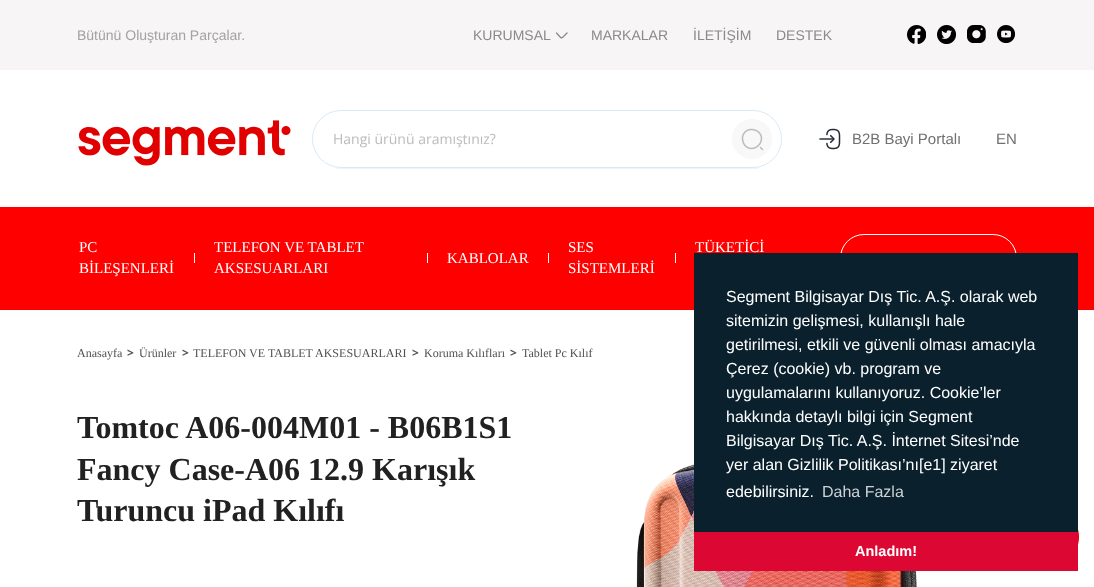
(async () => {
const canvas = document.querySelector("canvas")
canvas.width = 1094
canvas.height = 587
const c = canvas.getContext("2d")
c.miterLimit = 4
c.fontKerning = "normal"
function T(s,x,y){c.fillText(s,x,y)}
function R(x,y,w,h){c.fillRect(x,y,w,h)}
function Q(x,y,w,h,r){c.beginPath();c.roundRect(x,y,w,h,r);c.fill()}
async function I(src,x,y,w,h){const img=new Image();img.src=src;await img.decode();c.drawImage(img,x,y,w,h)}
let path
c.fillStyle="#fff"
R(0,0,1094,587)
c.fillStyle="#f7f5f5"
R(0,0,1094,70)
c.font="14px Liberation Sans"
c.fillStyle="#a2a2a2"
T("Bütünü Oluşturan Parçalar.",77,40)
c.fillStyle="#8a8a8a"
T("KURUMSAL",473,40)
c.save()
path = new Path2D("M568.5 31.5v7h-13v-7z")
c.clip(path)
path = new Path2D("M567 33l-5.5 5.5l-5-5.5")
c.strokeStyle="#8a8a8a"
c.lineWidth=1.3
c.lineCap="round"
c.lineJoin="round"
c.stroke(path)
c.restore()
T("MARKALAR",591,40)
T("İLETİŞİM",693,40)
T("DESTEK",776,40)
await I("1.png",907,25,19,19)
await I("2.png",937,25,19,19)
await I("3.png",967,25,19,18)
await I("4.png",997,25,18,18)
await I("5.png",78,120,213,46)
c.fillStyle="#ecf5fa"
c.beginPath()
c.roundRect(336,167,423,2,[0,0,2,2])
c.fill()
c.fillStyle="#fff"
Q(312,110,470,58,29)
c.beginPath()
c.roundRect(312.5,110.5,469,57,28.5)
c.strokeStyle="#4197cb33"
c.stroke()
c.font="14px Open Sans"
c.fillStyle="#bbb"
T("Hangi ürünü aramıştınız?",333,144)
c.fillStyle="#f8f8f8"
c.beginPath()
c.arc(752,139,20,0,7)
c.fill()
await I("6.png",741,128,23,23)
await I("7.png",819,128,22,22)
c.font="15px Liberation Sans"
c.fillStyle="#707070"
T("B2B Bayi Portalı",852,144)
T("EN",996,144)
c.fillStyle="#f00"
R(0,207,1094,103)
c.font="15px Liberation Serif"
c.fillStyle="#fff"
T("PC",79,252)
T("BİLEŞENLERİ",79,273)
R(194,253,1,10)
T("TELEFON VE TABLET",214,252)
T("AKSESUARLARI",214,273)
R(427,253,1,10)
T("KABLOLAR",447,263)
R(548,253,1,10)
T("SES",568,252)
T("SİSTEMLERİ",568,273)
T("TÜKETİCİ",695,252)
R(675,253,1,10)
c.beginPath()
c.roundRect(840.5,234.5,176,47,23.5)
c.strokeStyle="#fff"
c.stroke()
c.font="12px Liberation Serif"
c.fillStyle="#515151"
T("Anasayfa",77,357)
c.font="bold 12px Open Sans"
T(">",127,357)
c.font="12px Liberation Serif"
T("Ürünler",139,357)
c.font="bold 12px Open Sans"
T(">",182,357)
c.font="12px Liberation Serif"
T("TELEFON VE TABLET AKSESUARLARI",193,357)
c.font="bold 12px Open Sans"
T(">",412,357)
c.font="12px Liberation Serif"
T("Koruma Kılıfları",424,357)
c.font="bold 12px Open Sans"
T(">",510,357)
c.font="12px Liberation Serif"
T("Tablet Pc Kılıf",522,357)
await I("8.png",636,443,281,144)
c.fillStyle="#e10000"
path = new Path2D("M1029 537c0-33 50-33 50 0c0 33-50 33-50 0z")
c.fill(path)
c.fillStyle="#0a202d"
R(694,253,384,279)
c.font="16px Liberation Sans"
c.fillStyle="#fff"
T("Segment Bilgisayar Dış Tic. A.Ş. olarak web",726,302)
T("sitemizin gelişmesi, kullanışlı hale",726,326)
T("getirilmesi, etkili ve güvenli olması amacıyla",726,350)
T("Çerez (cookie) vb. program ve",726,374)
T("uygulamalarını kullanıyoruz. Cookie’ler",726,398)
T("hakkında detaylı bilgi için Segment",726,422)
T("Bilgisayar Dış Tic. A.Ş. İnternet Sitesi’nde",726,446)
T("yer alan Gizlilik Politikası’nı[e1] ziyaret",726,470)
T("edebilirsiniz.",726,497)
c.fillStyle="#ced2d5"
T("Daha Fazla",822,497)
c.fillStyle="#dd0734"
R(694,532,384,39)
c.font="bold 14.5px Liberation Sans"
c.fillStyle="#fff"
T("Anladım!",855,556)
c.font="bold 32px Liberation Serif"
c.fillStyle="#212121"
T("Tomtoc A06-004M01 - B06B1S1",77,438)
T("Fancy Case-A06 12.9 Karışık",77,480)
T("Turuncu iPad Kılıfı",77,521)
})()
